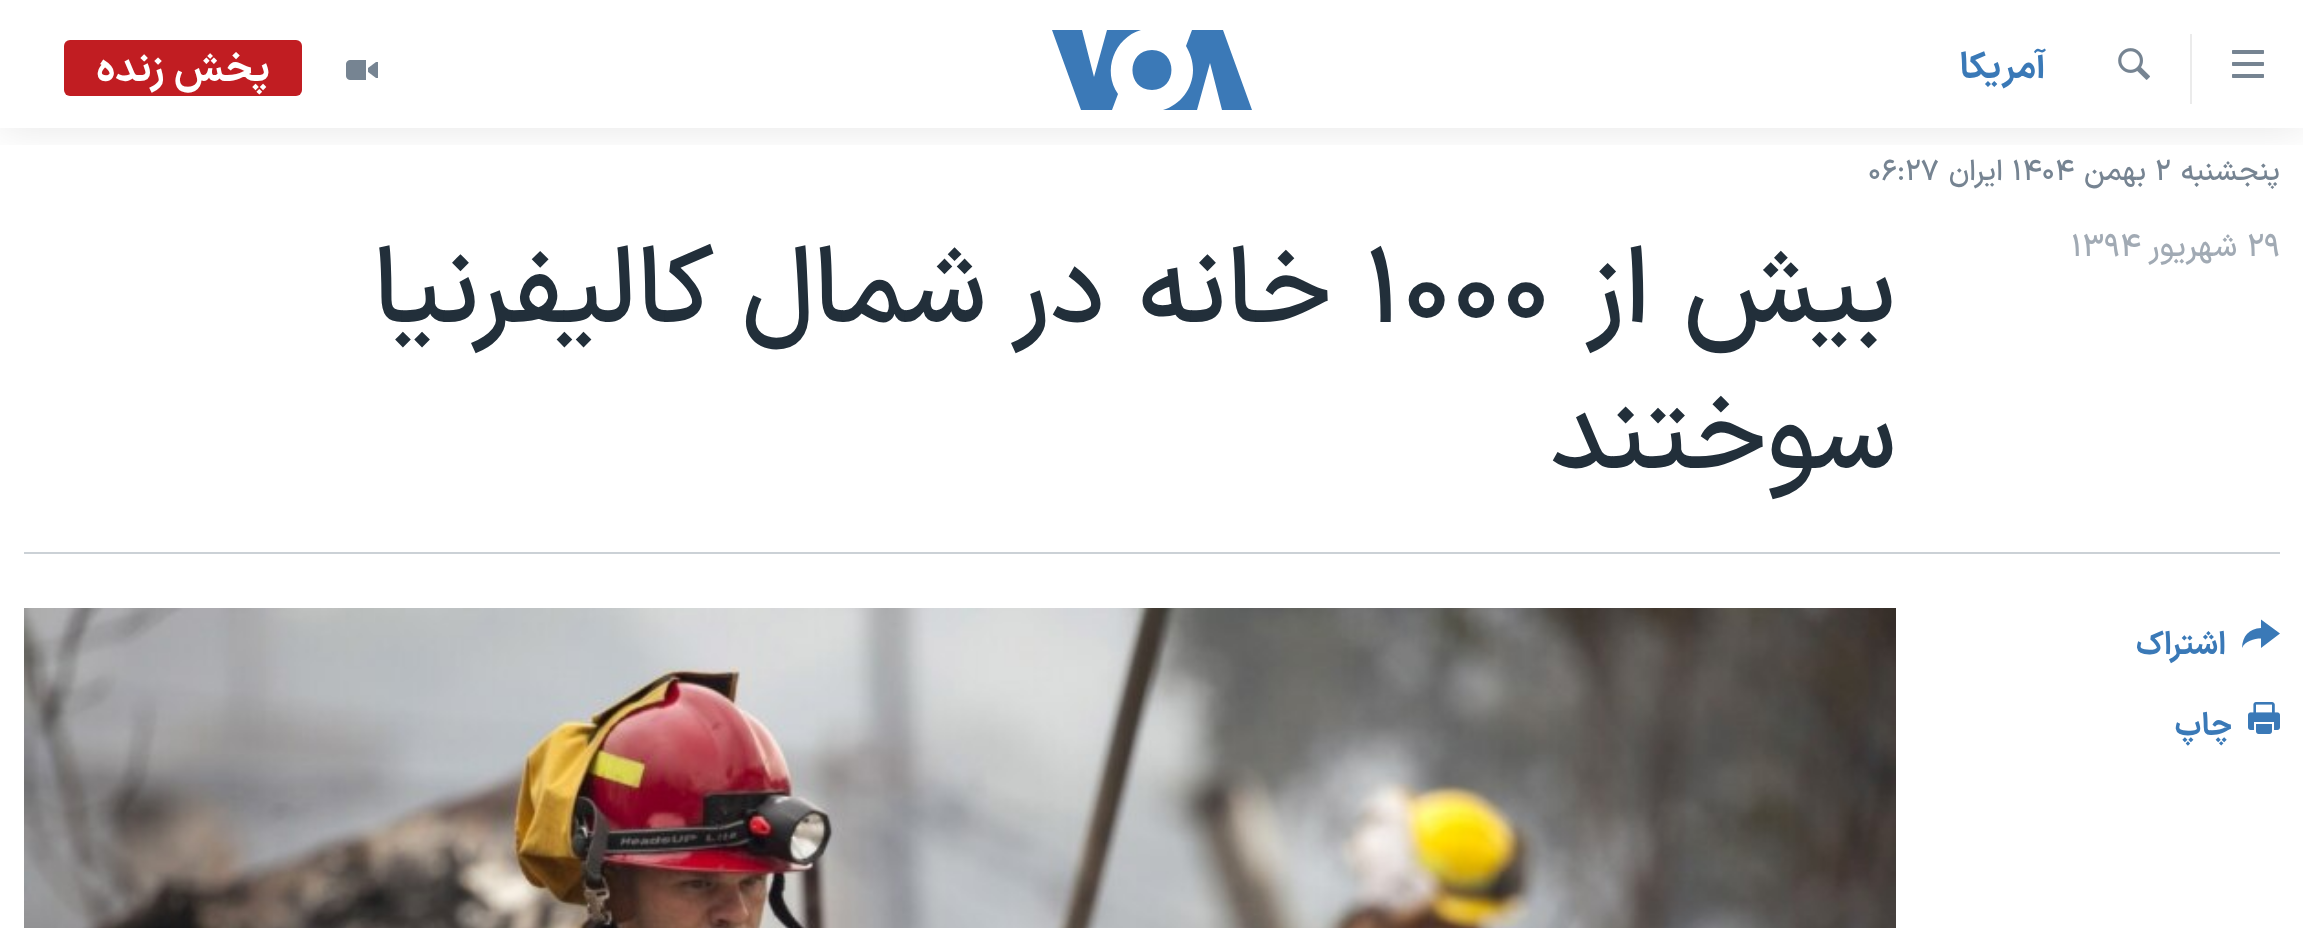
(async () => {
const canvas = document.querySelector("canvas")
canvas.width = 2303
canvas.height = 928
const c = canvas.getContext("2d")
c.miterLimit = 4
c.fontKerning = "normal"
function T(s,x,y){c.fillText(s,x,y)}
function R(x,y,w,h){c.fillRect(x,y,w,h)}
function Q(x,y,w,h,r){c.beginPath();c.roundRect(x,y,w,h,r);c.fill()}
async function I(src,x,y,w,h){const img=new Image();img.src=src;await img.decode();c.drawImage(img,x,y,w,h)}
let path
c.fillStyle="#fff"
R(0,0,2303,928)
c.save()
c.beginPath()
c.rect(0,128,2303,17)
c.clip()
c.fillStyle="#0000001a"
c.filter="blur(20px)"
c.beginPath()
c.rect(0,0,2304,128)
c.fill()
c.filter="none"
c.restore()
await I("1.png",2232,50,32,28)
c.fillStyle="#ebebeb"
R(2190,34,2,70)
await I("2.png",2118,48,32,32)
c.direction="rtl"
c.font="bold 36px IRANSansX"
c.fillStyle="#3a79b7"
T("آمريکا",2046,78)
c.fillStyle="#3b79b7"
path = new Path2D("M1118 94l-6 16h-31l-29-80h30l12 47l13-47h34c-27 8-39 41-23 64zm34-44c-26 0-26 40 0 40c26 0 26-40 0-40zm41 20c0 19-13 35-30 40h34l13-47l12 47h30l-29-80h-31l-6 16c4 7 7 15 7 24z")
c.fill(path)
await I("3.png",346,60,32,20)
c.fillStyle="#c11d22"
Q(64,40,238,56,6)
c.font="bold 40px IRANSansX"
c.fillStyle="#fff"
T("پخش زنده",270,81)
c.font="500 29px IRANSansX"
c.fillStyle="#768492"
T("پنجشنبه",2280,180)
c.direction="ltr"
T("۲",2155,180)
c.direction="rtl"
T("بهمن",2146,180)
c.direction="ltr"
T("۱۴۰۴",2012,180)
c.direction="rtl"
T("ایران",2003,180)
c.direction="ltr"
T("۰۶:۲۷",1868,180)
c.font="500 31.5px IRANSansX"
c.fillStyle="#a1aab4"
T("۲۹",2247,256)
c.direction="rtl"
T("شهریور",2237,256)
c.direction="ltr"
T("۱۳۹۴",2071,256)
c.direction="rtl"
c.font="500 108px IRANSansX"
c.fillStyle="#222f3a"
T("بیش از",1896,322)
c.direction="ltr"
T("۱۰۰۰",1364,322)
c.direction="rtl"
T("خانه در شمال کالیفرنیا",1331,322)
T("سوختند",1896,468)
c.fillStyle="#cbd1d6"
R(24,552,2256,2)
c.fillStyle="#3a79b7"
path = new Path2D("M2242 648c.5-12 7-19.5 19-20v-8.5l19 14l-19 14.5v-9.5c-7 0-16 2.5-19 9.5z")
c.fill(path)
c.font="bold 31.5px IRANSansX"
T("اشتراک",2226,654)
await I("4.png",2248,702,32,32)
T("چاپ",2232,735)
await I("5.png",24,608,1872,320)
})()
